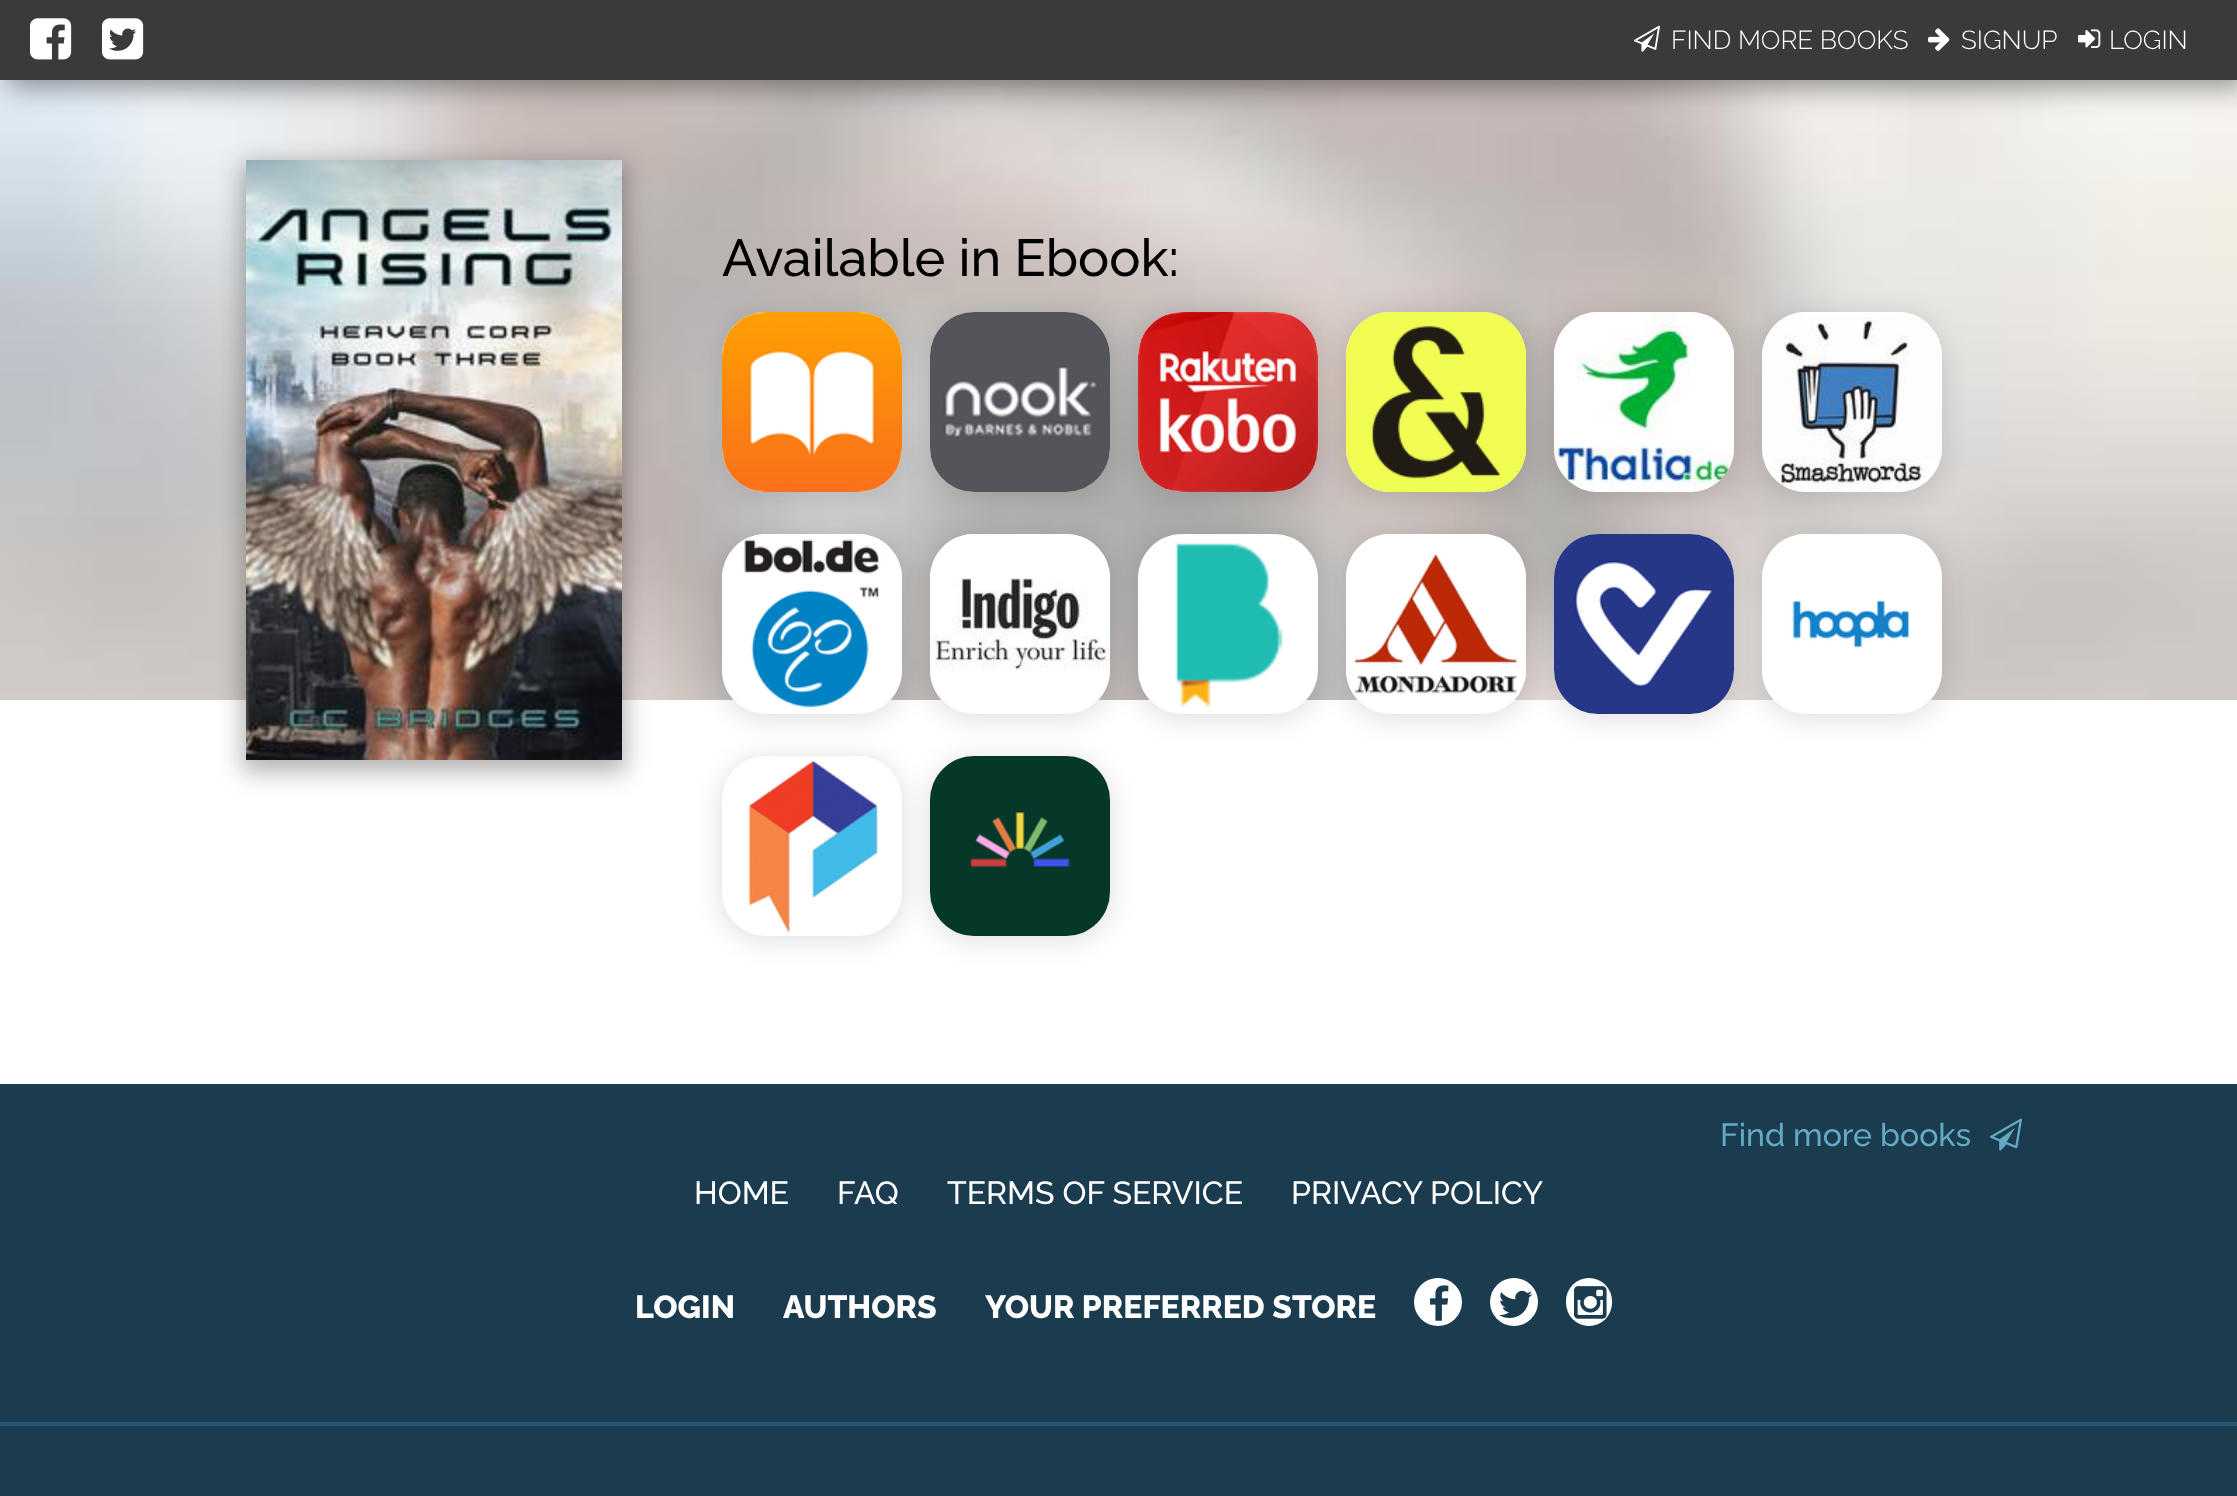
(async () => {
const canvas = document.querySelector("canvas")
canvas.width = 2237
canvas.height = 1496
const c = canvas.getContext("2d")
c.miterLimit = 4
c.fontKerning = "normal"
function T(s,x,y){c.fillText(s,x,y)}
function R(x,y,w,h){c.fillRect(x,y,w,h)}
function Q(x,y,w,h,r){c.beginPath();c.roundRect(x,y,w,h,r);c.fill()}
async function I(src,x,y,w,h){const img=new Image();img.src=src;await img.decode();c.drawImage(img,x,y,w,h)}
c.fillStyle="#fff"
R(0,0,2237,1496)
await I("1.png",0,80,2237,620)
c.fillStyle="#00000066"
c.filter="blur(14px)"
c.beginPath()
c.rect(8,8,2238,80)
c.fill()
c.filter="none"
c.fillStyle="#3a3a3a"
R(0,0,2237,80)
await I("2.png",30,18,42,42)
await I("3.png",102,18,42,42)
await I("4.png",1634,25,26,27)
c.font="300 26px Raleway"
c.fillStyle="#fff"
T("FIND MORE BOOKS",1671,49)
await I("5.png",1928,28,22,23)
T("SIGNUP",1961,49)
await I("6.png",2078,29,23,19)
T("LOGIN",2109,49)
c.fillStyle="#0000004d"
c.filter="blur(12px)"
c.beginPath()
c.rect(242,164,384,608)
c.fill()
c.filter="none"
await I("7.png",246,160,376,600)
c.fillStyle="#0000001a"
c.filter="blur(12px)"
c.beginPath()
c.roundRect(718,312,188,188,48)
c.fill()
c.filter="none"
c.fillStyle="#fff"
Q(722,312,180,180,44)
await I("8.png",722,312,180,180)
c.fillStyle="#0000001a"
c.filter="blur(12px)"
c.beginPath()
c.roundRect(926,312,188,188,48)
c.fill()
c.filter="none"
c.fillStyle="#fff"
Q(930,312,180,180,44)
await I("9.png",930,312,180,180)
c.fillStyle="#0000001a"
c.filter="blur(12px)"
c.beginPath()
c.roundRect(1134,312,188,188,48)
c.fill()
c.filter="none"
c.font="500 52px Raleway"
c.fillStyle="#000"
T("Available in Ebook:",722,276)
c.fillStyle="#fff"
Q(1138,312,180,180,44)
await I("10.png",1138,312,180,180)
c.fillStyle="#0000001a"
c.filter="blur(12px)"
c.beginPath()
c.roundRect(1342,312,188,188,48)
c.fill()
c.filter="none"
c.fillStyle="#fff"
Q(1346,312,180,180,44)
await I("11.png",1346,312,180,180)
c.fillStyle="#0000001a"
c.filter="blur(12px)"
c.beginPath()
c.roundRect(1550,312,188,188,48)
c.fill()
c.filter="none"
c.fillStyle="#fff"
Q(1554,312,180,180,44)
await I("12.png",1554,312,180,180)
c.fillStyle="#0000001a"
c.filter="blur(12px)"
c.beginPath()
c.roundRect(1758,312,188,188,48)
c.fill()
c.filter="none"
c.fillStyle="#fff"
Q(1762,312,180,180,44)
await I("13.png",1762,312,180,180)
c.fillStyle="#0000001a"
c.filter="blur(12px)"
c.beginPath()
c.roundRect(718,534,188,188,48)
c.fill()
c.filter="none"
c.fillStyle="#fff"
Q(722,534,180,180,44)
await I("14.png",722,534,180,174)
c.fillStyle="#0000001a"
c.filter="blur(12px)"
c.beginPath()
c.roundRect(926,534,188,188,48)
c.fill()
c.filter="none"
c.fillStyle="#fff"
Q(930,534,180,180,44)
await I("15.png",930,534,180,166)
c.fillStyle="#0000001a"
c.filter="blur(12px)"
c.beginPath()
c.roundRect(1134,534,188,188,48)
c.fill()
c.filter="none"
c.fillStyle="#fff"
Q(1138,534,180,180,44)
c.fillStyle="#0000001a"
c.filter="blur(12px)"
c.beginPath()
c.roundRect(1342,534,188,188,48)
c.fill()
c.filter="none"
c.fillStyle="#fff"
Q(1346,534,180,180,44)
await I("16.png",1346,534,180,166)
c.fillStyle="#0000001a"
c.filter="blur(12px)"
c.beginPath()
c.roundRect(1550,534,188,188,48)
c.fill()
c.filter="none"
c.fillStyle="#fff"
Q(1554,534,180,180,44)
await I("17.png",1554,534,180,180)
c.fillStyle="#0000001a"
c.filter="blur(12px)"
c.beginPath()
c.roundRect(1758,534,188,188,48)
c.fill()
c.filter="none"
c.fillStyle="#fff"
Q(1762,534,180,180,44)
await I("18.png",1175,541,108,166)
await I("19.png",1762,534,180,166)
c.fillStyle="#0000001a"
c.filter="blur(12px)"
c.beginPath()
c.roundRect(718,756,188,188,48)
c.fill()
c.filter="none"
c.fillStyle="#fff"
Q(722,756,180,180,44)
c.fillStyle="#0000001a"
c.filter="blur(12px)"
c.beginPath()
c.roundRect(926,756,188,188,48)
c.fill()
c.filter="none"
c.fillStyle="#fff"
Q(930,756,180,180,44)
await I("20.png",748,760,131,173)
await I("21.png",930,756,180,180)
c.fillStyle="#1b3b4f"
R(0,1084,2237,412)
c.font="500 32px Raleway"
c.fillStyle="#63aac5"
T("Find more books",1720,1146)
await I("22.png",1990,1118,32,33)
c.fillStyle="#fff"
T("HOME",694,1204)
T("FAQ",837,1204)
T("TERMS OF SERVICE",947,1204)
T("PRIVACY POLICY",1291,1204)
c.font="800 32px Raleway"
T("LOGIN",635,1318)
T("AUTHORS",783,1318)
T("YOUR PREFERRED STORE",985,1318)
c.beginPath()
c.arc(1438,1302,24,0,7)
c.fill()
await I("23.png",1430,1285,19,36)
c.beginPath()
c.arc(1514,1302,24,0,7)
c.fill()
await I("24.png",1499,1290,34,28)
Q(1566,1278,46,48,23)
await I("25.png",1574,1286,33,33)
c.fillStyle="#285775"
R(0,1422,2237,4)
})()
